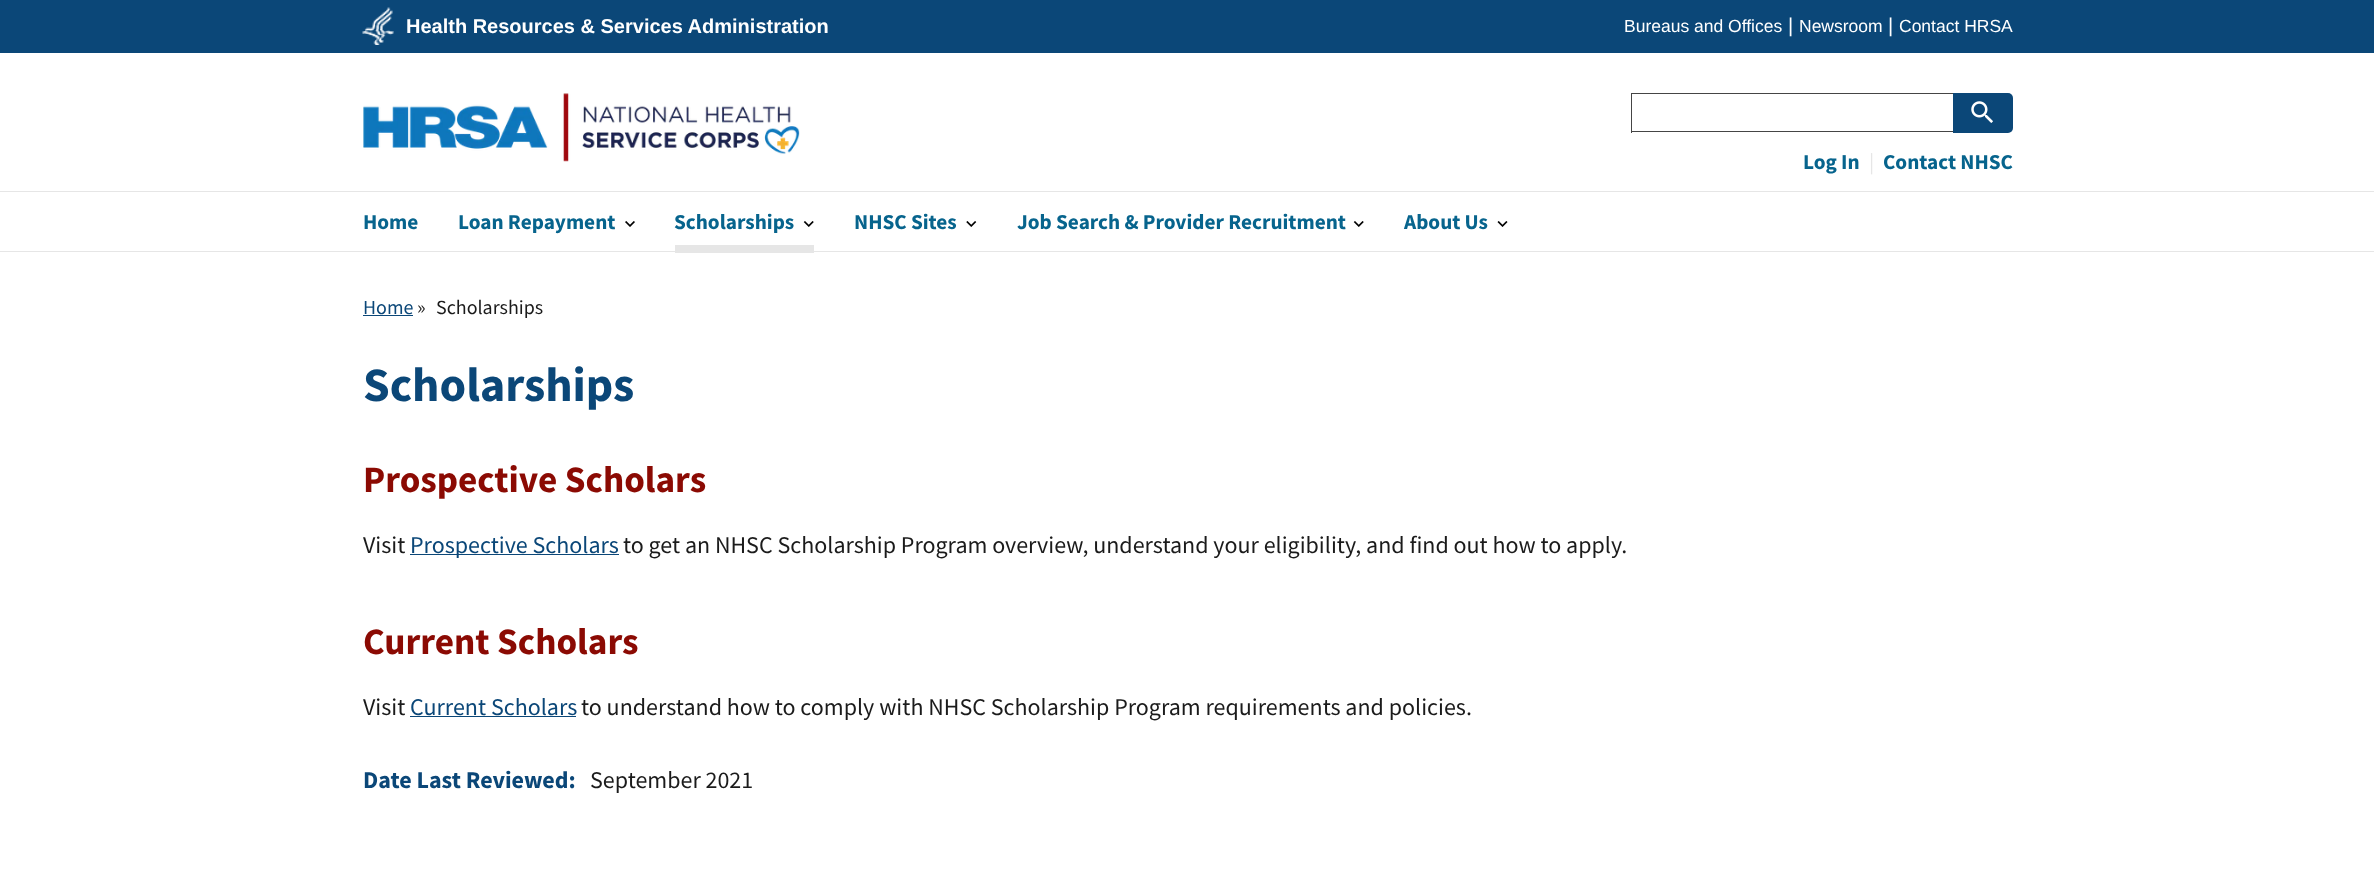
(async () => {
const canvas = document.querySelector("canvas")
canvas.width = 2374
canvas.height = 876
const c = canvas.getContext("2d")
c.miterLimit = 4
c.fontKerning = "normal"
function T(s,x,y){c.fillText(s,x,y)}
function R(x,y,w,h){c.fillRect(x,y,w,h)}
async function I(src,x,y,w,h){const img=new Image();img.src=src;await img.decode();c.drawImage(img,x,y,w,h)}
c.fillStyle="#fff"
R(0,0,2374,876)
c.fillStyle="#0b4778"
R(0,0,2374,53)
await I("1.png",362,7,32,38)
c.font="bold 20px Liberation Sans"
c.fillStyle="#fff"
T("Health Resources & Services Administration",406,33)
c.font="17.5px Liberation Sans"
T("Bureaus and Offices",1624,32)
c.font="20px Liberation Sans"
T("|",1788,32)
c.font="17.5px Liberation Sans"
T("Newsroom",1799,32)
c.font="20px Liberation Sans"
T("|",1888,32)
c.font="17.5px Liberation Sans"
T("Contact HRSA",1899,32)
await I("2.png",363,93,437,69)
c.fillStyle="#e6e6e6"
R(0,191,2374,1)
c.fillStyle="#454545"
R(1631,93,322,1)
R(1631,131,322,1)
R(1631,93,1,40)
c.fillStyle="#0b4778"
c.beginPath()
c.roundRect(1953,93,60,40,[0,5,5,0])
c.fill()
await I("3.png",1971,101,22,22)
c.font="bold 21.25px Source Sans Pro"
c.fillStyle="#07648d"
T("Log In",1803,169)
c.font="21.25px Source Sans Pro"
c.fillStyle="#e6e6e6"
T("|",1869,169)
c.font="bold 21.25px Source Sans Pro"
c.fillStyle="#07648d"
T("Contact NHSC",1883,169)
T("Home",363,229)
await I("4.png",625,221,10,6)
T("Loan Repayment",458,229)
await I("5.png",803,221,11,6)
T("Scholarships",674,229)
c.fillStyle="#e6e6e6"
R(0,251,2374,1)
R(675,245,139,8)
await I("6.png",966,221,11,6)
c.fillStyle="#07648d"
T("NHSC Sites",854,229)
await I("5.png",1353,221,11,6)
T("Job Search & Provider Recruitment",1017,229)
await I("7.png",1497,221,11,6)
T("About Us",1404,229)
c.font="20px Source Sans Pro"
c.fillStyle="#0b4778"
T("Home",363,314)
R(363,315,50,1)
c.fillStyle="#1b1b1b"
T("»",417,314)
T("Scholarships",436,314)
c.font="bold 48px Source Sans Pro"
c.fillStyle="#0b4778"
T("Scholarships",363,401)
c.font="bold 37.25px Source Sans Pro"
c.fillStyle="#8b0a03"
T("Prospective Scholars",363,492)
c.font="24px Source Sans Pro"
c.fillStyle="#1b1b1b"
T("Visit",363,553)
c.fillStyle="#0b4778"
R(410,554,209,1)
T("Prospective Scholars",410,553)
c.fillStyle="#1b1b1b"
T("to get an NHSC Scholarship Program overview, understand your eligibility, and find out how to apply.",623,553)
c.font="bold 37.25px Source Sans Pro"
c.fillStyle="#8b0a03"
T("Current Scholars",363,654)
c.font="24px Source Sans Pro"
c.fillStyle="#1b1b1b"
T("Visit",363,715)
c.fillStyle="#0b4778"
T("Current Scholars",410,715)
R(410,716,166,1)
c.fillStyle="#1b1b1b"
T("to understand how to comply with NHSC Scholarship Program requirements and policies.",581,715)
c.font="bold 24px Source Sans Pro"
c.fillStyle="#0b4778"
T("Date Last Reviewed:",363,788)
c.font="24px Source Sans Pro"
c.fillStyle="#1b1b1b"
T("September 2021",590,788)
})()
